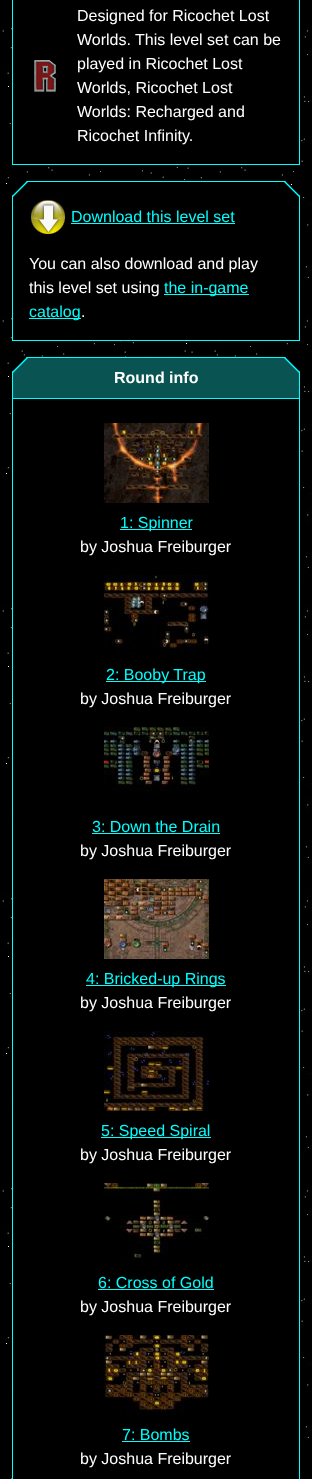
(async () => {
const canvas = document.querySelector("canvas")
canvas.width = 312
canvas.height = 1479
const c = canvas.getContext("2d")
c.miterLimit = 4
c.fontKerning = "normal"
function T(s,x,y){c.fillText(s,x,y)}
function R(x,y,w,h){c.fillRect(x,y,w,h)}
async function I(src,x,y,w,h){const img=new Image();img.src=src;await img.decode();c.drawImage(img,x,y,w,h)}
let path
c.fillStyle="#fff"
R(0,0,312,1479)
await I("1.png",0,0,312,1479)
c.fillStyle="#01ffff"
path = new Path2D("M12-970v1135h288v-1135l-15-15h-258z")
c.fill(path)
c.fillStyle="#000"
path = new Path2D("M13-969v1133h286v-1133l-15-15h-256z")
c.fill(path)
await I("2.png",34,60,22,32)
c.font="16px Liberation Sans"
c.fillStyle="#fff"
T("Designed for Ricochet Lost",77,21)
T("Worlds. This level set can be",77,45)
T("played in Ricochet Lost",77,69)
T("Worlds, Ricochet Lost",77,93)
T("Worlds: Recharged and",77,117)
T("Ricochet Infinity.",77,141)
c.fillStyle="#01ffff"
path = new Path2D("M12 196v145h288v-145l-15-15h-258z")
c.fill(path)
path = new Path2D("M12 196v145h288v-145l-1-1v145h-286v-145zm14-14h260l-1-1h-258z")
c.fill(path,"evenodd")
c.fillStyle="#000"
path = new Path2D("M13 197v143h286v-143l-15-15h-256z")
c.fill(path)
await I("3.png",29,198,38,38)
c.fillStyle="#00fffe"
T("Download this level set",71,222)
R(71,223,164,1)
c.fillStyle="#fff"
T("You can also download and play",29,269)
T("this level set using",29,293)
c.fillStyle="#00fffe"
R(164,294,85,1)
T("the in-game",164,293)
R(29,318,52,1)
T("catalog",29,317)
c.fillStyle="#fff"
T(".",81,317)
c.fillStyle="#01ffff"
path = new Path2D("M12 372v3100h288v-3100l-15-15h-258z")
c.fill(path)
path = new Path2D("M12 372v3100h288v-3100l-1-1v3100h-286v-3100zm14-14h260l-1-1h-258z")
c.fill(path,"evenodd")
c.fillStyle="#095352"
path = new Path2D("M13 373v26h286v-26l-15-15h-256z")
c.fill(path)
c.fillStyle="#01ffff"
R(13,398,286,1)
c.font="bold 16px Liberation Sans"
c.fillStyle="#fff"
T("Round info",114,383)
c.fillStyle="#000"
R(13,399,286,1080)
await I("4.png",104,423,105,80)
c.fillStyle="#00fffe"
R(120,529,72,1)
c.font="16px Liberation Sans"
T("1: Spinner",120,528)
c.fillStyle="#fff"
T("by Joshua Freiburger",80,552)
await I("5.png",104,575,105,80)
c.fillStyle="#00fffe"
R(106,681,100,1)
T("2: Booby Trap",106,680)
c.fillStyle="#fff"
T("by Joshua Freiburger",80,704)
await I("6.png",104,727,105,64)
c.fillStyle="#00fffe"
T("3: Down the Drain",92,832)
R(92,833,128,1)
c.fillStyle="#fff"
T("by Joshua Freiburger",80,856)
await I("7.png",104,879,105,80)
c.fillStyle="#00fffe"
R(86,985,140,1)
T("4: Bricked-up Rings",86,984)
c.fillStyle="#fff"
T("by Joshua Freiburger",80,1008)
await I("8.png",104,1031,105,80)
c.fillStyle="#00fffe"
R(101,1137,110,1)
T("5: Speed Spiral",101,1136)
c.fillStyle="#fff"
T("by Joshua Freiburger",80,1160)
await I("9.png",104,1183,105,80)
c.fillStyle="#00fffe"
T("6: Cross of Gold",98,1288)
R(98,1289,116,1)
c.fillStyle="#fff"
T("by Joshua Freiburger",80,1312)
await I("10.png",104,1335,105,80)
c.fillStyle="#00fffe"
T("7: Bombs",122,1440)
R(122,1441,68,1)
c.fillStyle="#fff"
T("by Joshua Freiburger",80,1464)
})()
